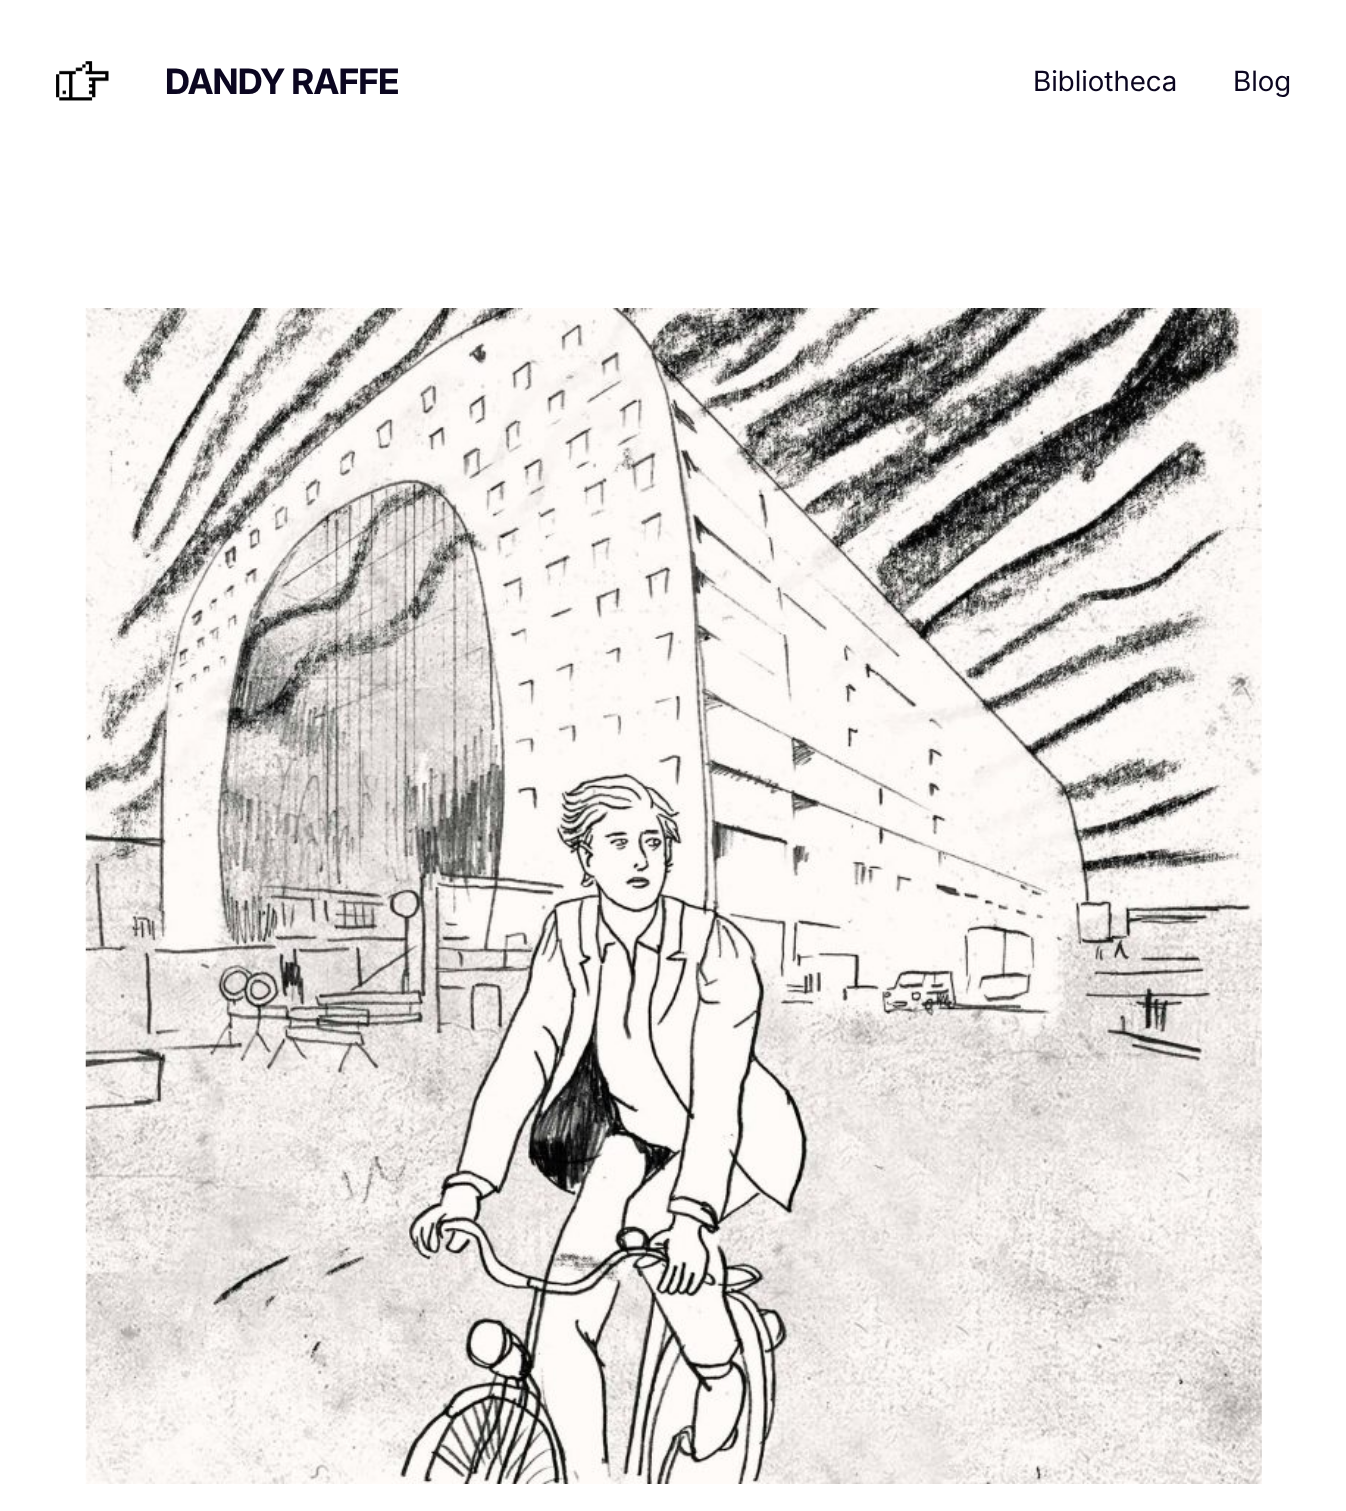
(async () => {
const canvas = document.querySelector("canvas")
canvas.width = 1346
canvas.height = 1511
const c = canvas.getContext("2d")
c.miterLimit = 4
c.fontKerning = "normal"
function T(s,x,y){c.fillText(s,x,y)}
function R(x,y,w,h){c.fillRect(x,y,w,h)}
async function I(src,x,y,w,h){const img=new Image();img.src=src;await img.decode();c.drawImage(img,x,y,w,h)}
c.fillStyle="#fff"
R(0,0,1346,1511)
await I("1.png",56,61,53,40)
c.letterSpacing="-0.75px"
c.font="bold 35px Inter"
c.fillStyle="#0b0620"
T("DANDY RAFFE",165,94)
c.letterSpacing="0px"
c.font="28px Inter"
T("Bibliotheca",1033,91)
T("Blog",1233,91)
await I("2.png",85,308,1177,1176)
})()
